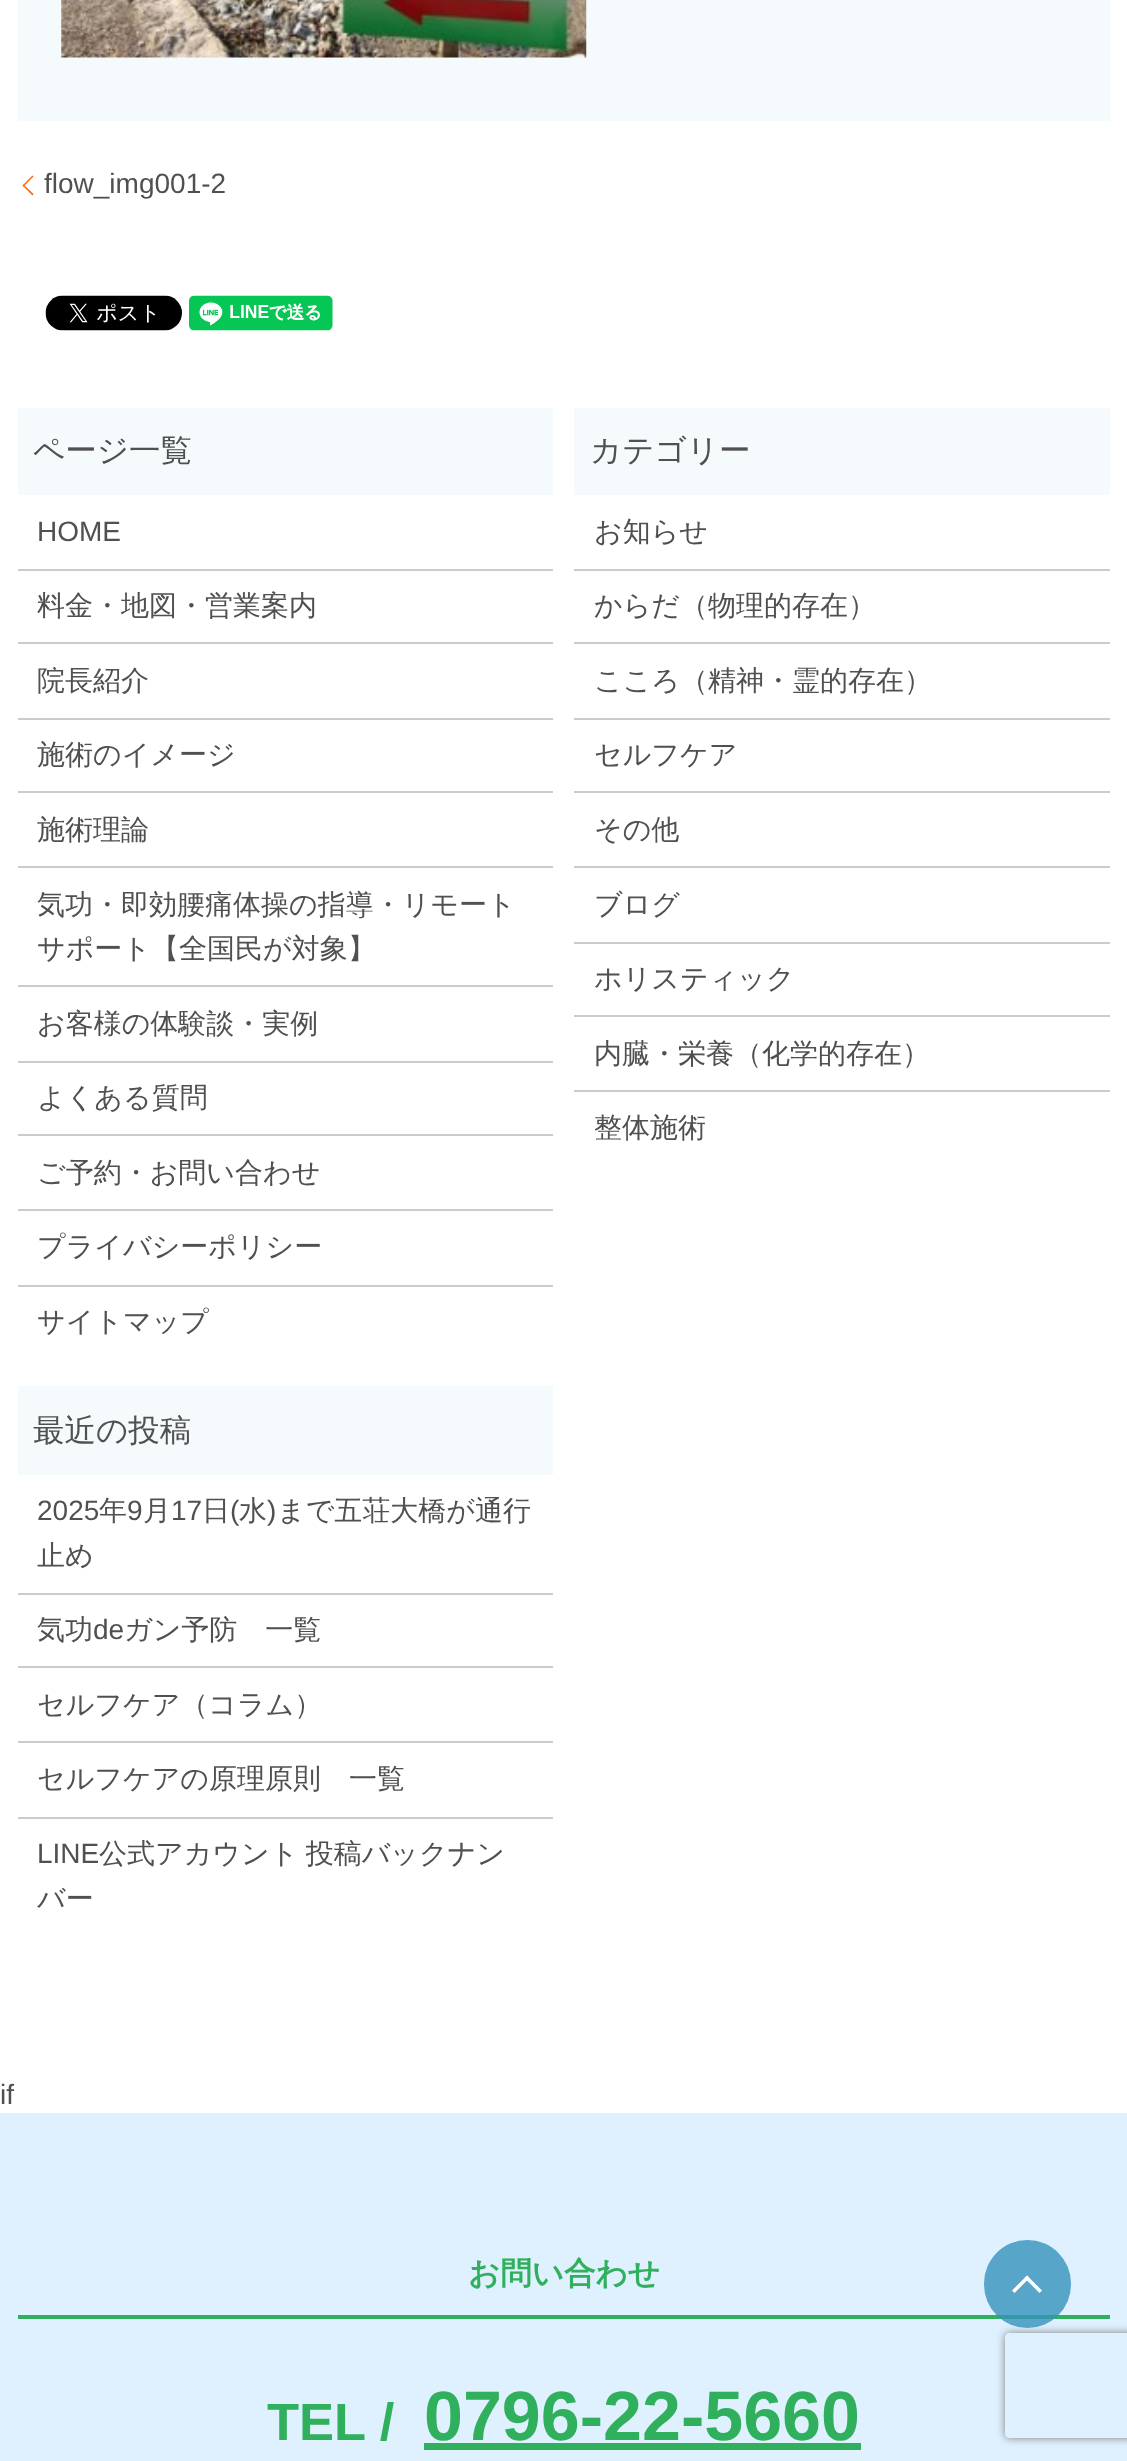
(async () => {
const canvas = document.querySelector("canvas")
canvas.width = 1127
canvas.height = 2461
const c = canvas.getContext("2d")
c.miterLimit = 4
c.fontKerning = "normal"
function T(s,x,y){c.fillText(s,x,y)}
function R(x,y,w,h){c.fillRect(x,y,w,h)}
function Q(x,y,w,h,r){c.beginPath();c.roundRect(x,y,w,h,r);c.fill()}
async function I(src,x,y,w,h){const img=new Image();img.src=src;await img.decode();c.drawImage(img,x,y,w,h)}
let path
c.fillStyle="#fff"
R(0,0,1127,2461)
c.fillStyle="#f5fafc"
R(18,0,1092,121)
await I("1.png",61,0,526,58)
c.fillStyle="#f60"
path = new Path2D("M22.5 185.5l10-10l1 1l-10 10z")
c.fill(path)
c.font="28px Liberation Sans"
c.fillStyle="#505050"
T("flow_img001-2",44,193)
c.fillStyle="#f60"
path = new Path2D("M32.5 195.5l-10-10l1-1l10 9.5z")
c.fill(path)
await I("2.png",45,295,137,36)
await I("3.png",189,295,144,36)
c.fillStyle="#f5fafc"
R(18,408,535,87)
c.font="500 31.5px WenQuanYi Zen Hei"
c.fillStyle="#505050"
T("ページ一覧",33,461)
c.fillStyle="#ccc"
R(18,569,535,2)
c.font="28px Liberation Sans"
c.fillStyle="#505050"
T("HOME",37,541)
c.fillStyle="#ccc"
R(18,642,535,2)
c.font="500 28px WenQuanYi Zen Hei"
c.fillStyle="#505050"
T("料金・地図・営業案内",37,615)
c.fillStyle="#ccc"
R(18,718,535,2)
c.fillStyle="#505050"
T("院長紹介",37,690)
c.fillStyle="#ccc"
R(18,791,535,2)
c.fillStyle="#505050"
T("施術のイメージ",37,764)
c.fillStyle="#ccc"
R(18,866,535,2)
c.fillStyle="#505050"
T("施術理論",37,839)
c.fillStyle="#ccc"
R(18,985,535,2)
c.fillStyle="#505050"
T("気功・即効腰痛体操の指導・リモート",37,914)
T("サポート【全国民が対象】",37,958)
c.fillStyle="#ccc"
R(18,1061,535,2)
c.fillStyle="#505050"
T("お客様の体験談・実例",37,1033)
c.fillStyle="#ccc"
R(18,1134,535,2)
c.fillStyle="#505050"
T("よくある質問",37,1107)
c.fillStyle="#ccc"
R(18,1209,535,2)
c.fillStyle="#505050"
T("ご予約・お問い合わせ",37,1182)
c.fillStyle="#ccc"
R(18,1285,535,2)
c.fillStyle="#505050"
T("プライバシーポリシー",37,1256)
T("サイトマップ",37,1331)
c.fillStyle="#f5fafc"
R(574,408,536,87)
c.font="500 31.5px WenQuanYi Zen Hei"
c.fillStyle="#505050"
T("カテゴリー",590,461)
c.fillStyle="#ccc"
R(574,569,536,2)
c.font="500 28px WenQuanYi Zen Hei"
c.fillStyle="#505050"
T("お知らせ",594,541)
c.fillStyle="#ccc"
R(574,642,536,2)
c.fillStyle="#505050"
T("からだ（物理的存在）",594,615)
c.fillStyle="#ccc"
R(574,718,536,2)
c.fillStyle="#505050"
T("こころ（精神・霊的存在）",594,690)
c.fillStyle="#ccc"
R(574,791,536,2)
c.fillStyle="#505050"
T("セルフケア",594,764)
c.fillStyle="#ccc"
R(574,866,536,2)
c.fillStyle="#505050"
T("その他",594,839)
c.fillStyle="#ccc"
R(574,942,536,2)
c.fillStyle="#505050"
T("ブログ",594,914)
c.fillStyle="#ccc"
R(574,1015,536,2)
c.fillStyle="#505050"
T("ホリスティック",594,988)
c.fillStyle="#ccc"
R(574,1090,536,2)
c.fillStyle="#505050"
T("内臓・栄養（化学的存在）",594,1063)
T("整体施術",594,1137)
c.fillStyle="#f5fafc"
R(18,1386,535,89)
c.font="500 31.5px WenQuanYi Zen Hei"
c.fillStyle="#505050"
T("最近の投稿",33,1441)
c.fillStyle="#ccc"
R(18,1593,535,2)
c.font="28px Liberation Sans"
c.fillStyle="#505050"
T("2025",37,1520)
c.font="500 28px WenQuanYi Zen Hei"
T("年",99,1520)
c.font="28px Liberation Sans"
T("9",127,1520)
c.font="500 28px WenQuanYi Zen Hei"
T("月",143,1520)
c.font="28px Liberation Sans"
T("17",171,1520)
c.font="500 28px WenQuanYi Zen Hei"
T("日",202,1520)
c.font="28px Liberation Sans"
T("(",230,1520)
c.font="500 28px WenQuanYi Zen Hei"
T("水",239,1520)
c.font="28px Liberation Sans"
T(")",267,1520)
c.font="500 28px WenQuanYi Zen Hei"
T("まで五荘大橋が通行",277,1520)
T("止め",37,1565)
c.fillStyle="#ccc"
R(18,1666,535,2)
c.fillStyle="#505050"
T("気功",37,1639)
c.font="28px Liberation Sans"
T("de",93,1639)
c.font="500 28px WenQuanYi Zen Hei"
T("ガン予防　一覧",124,1639)
c.fillStyle="#ccc"
R(18,1741,535,2)
c.fillStyle="#505050"
T("セルフケア（コラム）",37,1714)
c.fillStyle="#ccc"
R(18,1817,535,2)
c.fillStyle="#505050"
T("セルフケアの原理原則　一覧",37,1788)
c.font="28px Liberation Sans"
T("LINE",37,1863)
c.wordSpacing="-1px"
c.font="500 28px WenQuanYi Zen Hei"
T("公式アカウント 投稿バックナン",99,1863)
c.wordSpacing="0px"
T("バー",37,1908)
c.font="28px Liberation Sans"
T("if",0,2104)
c.fillStyle="#dff1ff"
R(0,2113,1127,348)
c.font="bold 31.5px WenQuanYi Zen Hei"
c.fillStyle="#30b05c"
T("お問い合わせ",468,2284)
R(18,2315,1092,4)
c.font="bold 52.5px Liberation Sans"
T("TEL /",267,2440)
c.font="bold 70px Liberation Sans"
T("0796-22-5660",424,2440)
R(424,2443,437,7)
c.save()
path = new Path2D("M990 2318h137v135h-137zm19 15h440c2 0 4 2 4 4v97c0 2-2 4-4 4h-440c-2 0-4-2-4-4v-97c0-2 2-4 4-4z")
c.clip(path,"evenodd")
c.fillStyle="#808080"
c.filter="blur(4.5px)"
c.beginPath()
c.roundRect(1005,2333,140,105,4)
c.fill()
c.filter="none"
c.restore()
c.fillStyle="#3592bccc"
Q(984,2240,87,88,43.5)
c.fillStyle="#fff"
path = new Path2D("M1027 2275.5l15 15l-2.5 2.5l-15-15z")
c.fill(path)
path = new Path2D("M1027 2275.5l2.5 2.5l-15 15l-2.5-2.5z")
c.fill(path)
})()
